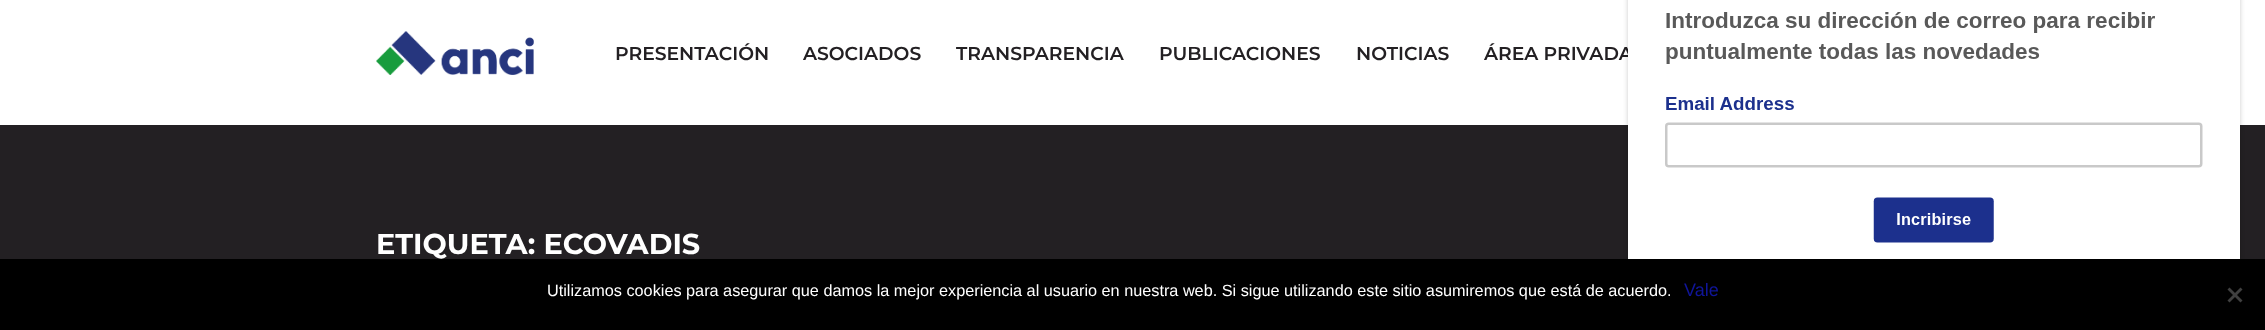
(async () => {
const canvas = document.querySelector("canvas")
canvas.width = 2265
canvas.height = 330
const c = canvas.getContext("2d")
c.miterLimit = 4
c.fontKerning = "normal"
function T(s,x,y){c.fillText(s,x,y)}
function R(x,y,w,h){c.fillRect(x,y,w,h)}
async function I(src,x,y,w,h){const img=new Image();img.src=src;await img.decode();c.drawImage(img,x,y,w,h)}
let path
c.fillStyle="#fff"
R(0,0,2265,330)
await I("1.png",376,31,158,44)
c.font="600 18.75px Montserrat"
c.fillStyle="#232023"
T("PRESENTACIÓN",615,60)
T("ASOCIADOS",803,60)
T("TRANSPARENCIA",956,60)
T("PUBLICACIONES",1159,60)
T("NOTICIAS",1356,60)
T("ÁREA PRIVADA",1484,60)
R(0,125,2265,134)
c.font="bold 28.75px Montserrat"
c.fillStyle="#fff"
T("ETIQUETA: ECOVADIS",376,254)
c.fillStyle="#00000033"
c.filter="blur(2.5px)"
c.beginPath()
c.roundRect(1628,-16,612,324,8)
c.fill()
c.filter="none"
c.fillStyle="#fff"
R(1628,0,612,12)
await I("2.png",1628,12,612,247)
c.fillStyle="#000"
R(0,259,2265,71)
c.font="16.25px Liberation Sans"
c.fillStyle="#fff"
T("Utilizamos cookies para asegurar que damos la mejor experiencia al usuario en nuestra web. Si sigue utilizando este sitio asumiremos que está de acuerdo.",547,296)
c.font="18px Liberation Sans"
c.fillStyle="#10159a"
T("Vale",1684,296)
c.fillStyle="#404040"
path = new Path2D("M2240.5 287.5l2 2l-13 13l-2-2z")
c.fill(path)
path = new Path2D("M2227.5 289.5l2-2l13 13l-2 2z")
c.fill(path)
})()
